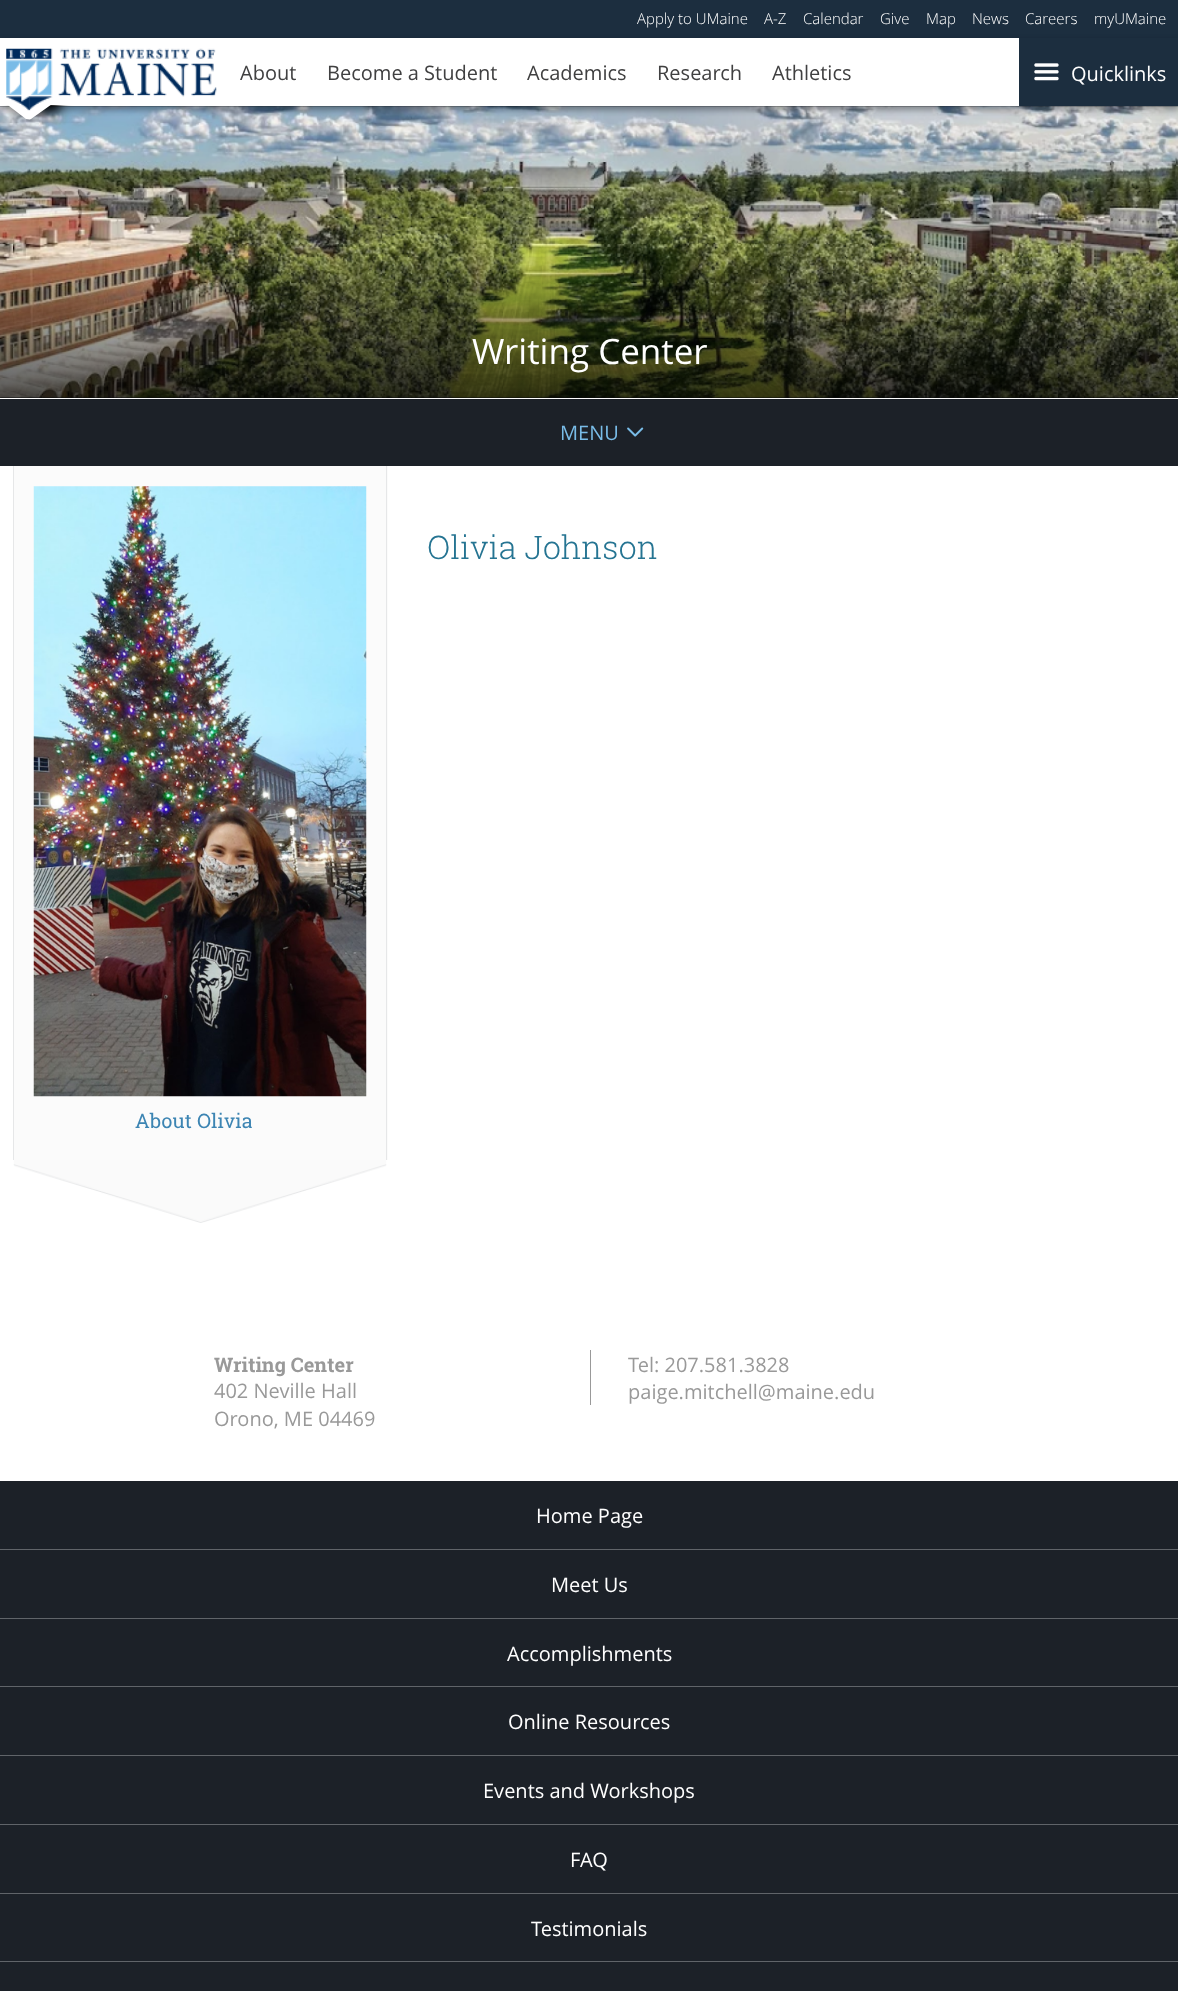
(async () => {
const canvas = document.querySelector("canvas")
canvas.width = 1178
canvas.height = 1991
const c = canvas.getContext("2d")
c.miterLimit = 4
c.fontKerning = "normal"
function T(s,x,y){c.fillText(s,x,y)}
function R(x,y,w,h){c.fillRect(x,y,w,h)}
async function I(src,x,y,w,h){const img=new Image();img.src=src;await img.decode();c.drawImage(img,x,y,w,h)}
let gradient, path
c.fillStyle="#fff"
R(0,0,1178,1991)
c.fillStyle="#1c2e3f"
R(0,0,1178,38)
c.font="300 15px Open Sans"
c.fillStyle="#fff"
T("Apply to UMaine",637,24)
T("A-Z",764,24)
T("Calendar",803,24)
T("Give",880,24)
T("Map",926,24)
T("News",972,24)
T("Careers",1025,24)
T("myUMaine",1094,24)
c.fillStyle="#1c2128"
R(0,106,1178,360)
await I("3.png",0,106,1178,292)
c.fillStyle="#00000059"
c.filter="blur(3px)"
c.beginPath()
c.rect(0,41,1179,69)
c.fill()
c.filter="none"
c.fillStyle="#fff"
R(0,38,1019,68)
c.fillStyle="#000"
c.filter="blur(6px)"
c.beginPath()
c.roundRect(16,88,44,25,2.5)
c.fill()
c.filter="none"
c.fillStyle="#fff"
path = new Path2D("M9 103l32-22c1-1 3 0 4 0l17 13c1 0 2 2 0 3l-31 22c-1 1-3 0-5 0l-17-13c-1 0-1-2 0-3z")
c.fill(path)
R(2,74,72,31)
await I("1.png",6,48,211,63)
c.font="20px Open Sans"
c.fillStyle="#404041"
T("About",240,80)
T("Become a Student",327,80)
T("Academics",527,80)
T("Research",657,80)
T("Athletics",772,80)
c.fillStyle="#1c2e3f"
R(1019,38,159,68)
await I("2.png",1034,63,25,18)
c.fillStyle="#fff"
T("Quicklinks",1071,81)
gradient = c.createLinearGradient(589,106,589,398)
gradient.addColorStop(.5,"#00000000")
gradient.addColorStop(1,"#000000ab")
c.fillStyle = gradient
R(0,257,1178,141)
c.font="35px Open Sans"
c.fillStyle="#fff"
T("Writing Center",472,364)
R(0,398,1178,1)
c.font="20px Open Sans"
c.fillStyle="#79bce7"
T("MENU",560,440)
await I("4.png",627,427,17,10)
c.font="300 32.5px Roboto Slab"
c.fillStyle="#257492"
T("Olivia Johnson",427,559)
c.fillStyle="#fbfbfb"
R(14,466,374,694)
c.fillStyle="#e6e7e8"
R(386,466,1,694)
R(13,466,1,694)
await I("5.png",33,486,334,611)
c.font="20px Roboto Slab"
c.fillStyle="#3d85b3"
T("About Olivia",135,1128)
await I("6.png",13,1160,374,63)
c.font="bold 20px Roboto Slab"
c.fillStyle="#999"
T("Writing Center",214,1372)
c.font="20px Open Sans"
T("402 Neville Hall",214,1398)
T("Orono, ME 04469",214,1426)
R(590,1350,1,55)
T("Tel: 207.581.3828",628,1372)
T("paige.mitchell@maine.edu",628,1399)
c.fillStyle="#1c2128"
R(0,1481,1178,510)
c.fillStyle="#606469"
R(0,1549,1178,1)
c.fillStyle="#fff"
T("Home Page",536,1523)
c.fillStyle="#606469"
R(0,1618,1178,1)
c.fillStyle="#fff"
T("Meet Us",551,1592)
c.fillStyle="#606469"
R(0,1686,1178,1)
c.fillStyle="#fff"
T("Accomplishments",507,1661)
c.fillStyle="#606469"
R(0,1755,1178,1)
c.fillStyle="#fff"
T("Online Resources",508,1729)
c.fillStyle="#606469"
R(0,1824,1178,1)
c.fillStyle="#fff"
T("Events and Workshops",483,1798)
c.fillStyle="#606469"
R(0,1893,1178,1)
c.fillStyle="#fff"
T("FAQ",570,1867)
c.fillStyle="#606469"
R(0,1961,1178,1)
c.fillStyle="#fff"
T("Testimonials",531,1936)
})()
